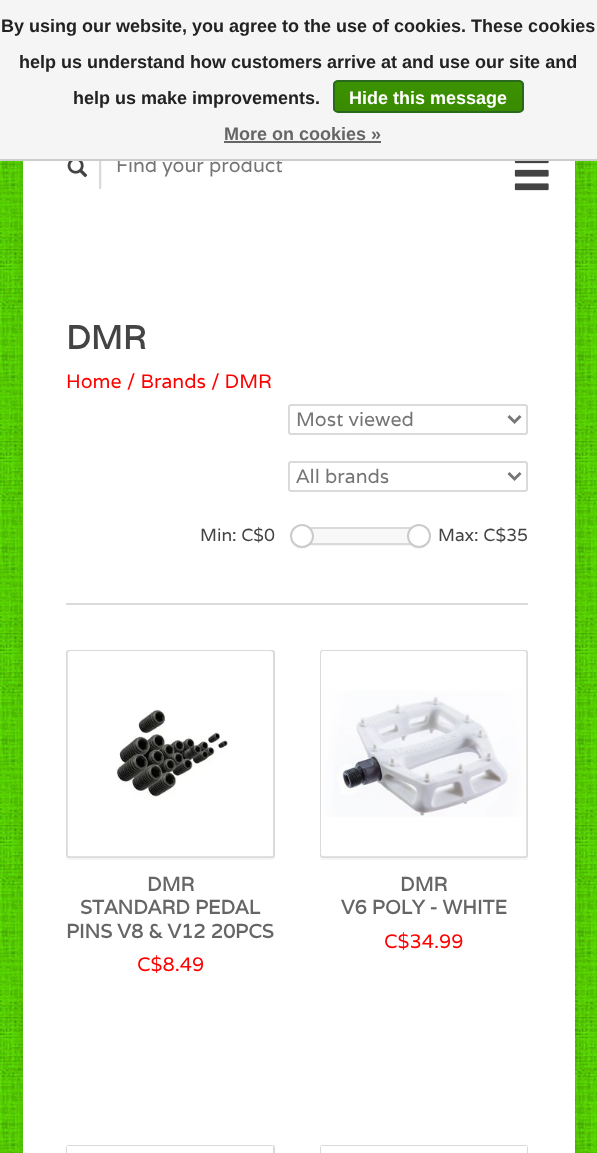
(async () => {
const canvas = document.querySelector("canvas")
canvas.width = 597
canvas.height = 1153
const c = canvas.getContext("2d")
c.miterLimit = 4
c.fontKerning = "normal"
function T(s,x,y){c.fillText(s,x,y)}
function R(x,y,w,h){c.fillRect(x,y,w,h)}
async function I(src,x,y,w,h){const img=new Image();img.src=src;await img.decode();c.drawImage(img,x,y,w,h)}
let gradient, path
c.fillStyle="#fff"
R(0,0,597,1153)
await I("1.png",0,161,597,992)
c.fillStyle="#00000021"
c.filter="blur(5px)"
c.beginPath()
c.roundRect(23,98,552,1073,3)
c.fill()
c.filter="none"
c.fillStyle="#fff"
R(23,161,552,992)
c.save()
c.beginPath()
c.rect(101,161,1,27)
c.clip()
c.fillStyle="#0000000f"
c.filter="blur(1px)"
c.beginPath()
c.rect(60,147,42,41)
c.fill()
c.filter="none"
c.restore()
c.font="19.5px Varela"
c.fillStyle="#757575"
T("Find your product",116,172)
c.fillStyle="#f5f5f5"
R(0,0,597,159)
c.fillStyle="#ccc"
R(0,159,597,2)
c.font="bold 18px Liberation Sans"
c.fillStyle="#222"
T("By using our website, you agree to the use of cookies. These cookies",1,32)
T("help us understand how customers arrive at and use our site and",19,68)
T("help us make improvements.",73,104)
c.save()
c.beginPath()
c.roundRect(333,80,191,33,5)
c.clip()
gradient = c.createLinearGradient(428,81,428,111)
gradient.addColorStop(0,"#3c9300")
gradient.addColorStop(1,"#398a00")
c.fillStyle = gradient
R(333,81,191,30)
c.restore()
c.beginPath()
c.roundRect(334,81,189,31,4)
c.strokeStyle="#29691d"
c.lineWidth=2
c.stroke()
c.fillStyle="#fff"
T("Hide this message",349,104)
c.fillStyle="#666"
T("More on cookies »",224,140)
R(224,141,157,2)
c.fillStyle="#dadada"
R(99,161,2,28)
await I("2.png",67,161,21,17)
await I("3.png",514,161,35,30)
c.font="bold 33px Varela"
c.fillStyle="#444"
T("DMR",66,349)
c.font="19.5px Varela"
c.fillStyle="#f00"
T("Home / Brands / DMR",66,388)
c.beginPath()
c.roundRect(289,405,238,29,2)
c.strokeStyle="#dadada"
c.stroke()
path = new Path2D("M508.5 416l6 6l6-6")
c.strokeStyle="#777"
c.lineWidth=3
c.stroke(path)
c.fillStyle="#757575"
T("Most viewed",296,426)
c.beginPath()
c.roundRect(289,462,238,29,2)
c.strokeStyle="#dadada"
c.lineWidth=2
c.stroke()
path = new Path2D("M508.5 473l6 6l6-6")
c.strokeStyle="#777"
c.lineWidth=3
c.stroke(path)
T("All brands",296,483)
c.font="17.5px Varela"
c.fillStyle="#444"
T("Min: C$0",200,541)
c.fillStyle="#0000000a"
R(303,545,117,1)
c.fillStyle="#f8f8f8"
R(311,529,99,14)
c.strokeStyle="#dadada"
c.lineWidth=2
c.strokeRect(304,528,115,16)
c.fillStyle="#0000000a"
path = new Path2D("M290.5 540c.5 2.5 2 5 4 6.5c10 7.5 23-3 18.5-14c4 14-17 21-22.5 7.5z")
c.fill(path)
c.fillStyle="#fff"
c.beginPath()
c.arc(302,536,11,0,7)
c.fill()
c.strokeStyle="#cbcbcb"
c.stroke()
c.fillStyle="#0000000a"
path = new Path2D("M407.5 540c.5 2.5 2 5 4 6.5c10 7.5 23-3 18.5-14c4 14-17 21-22.5 7.5z")
c.fill(path)
c.fillStyle="#fff"
c.beginPath()
c.arc(419,536,11,0,7)
c.fill()
c.stroke()
c.fillStyle="#444"
T("Max: C$35",438,541)
c.fillStyle="#dadada"
R(66,603,462,2)
c.fillStyle="#f5f5f5"
path = new Path2D("M66 855v2c0 2 1 3 3 3h203c2 0 3-1 3-3v-203l-1-2v203c0 2-1 3-2 3h-203c-2 0-3-1-3-3z")
c.fill(path)
c.beginPath()
c.roundRect(67,651,207,206,2)
c.strokeStyle="#dadada"
c.stroke()
await I("4.png",67,651,206,206)
c.font="bold 19.5px Varela"
c.fillStyle="#666"
T("DMR",147,891)
T("STANDARD PEDAL",80,914)
T("PINS V8 & V12 20PCS",66,938)
c.font="19.5px Varela"
c.fillStyle="#f00"
T("C$8.49",137,971)
c.fillStyle="#f5f5f5"
path = new Path2D("M320 857c0 2 1 3 3 3h202c2 0 3-1 3-3v-2c0 2-1 3-3 3h-203c-1 0-1-1-2-1z")
c.fill(path)
c.beginPath()
c.roundRect(321,651,206,206,2)
c.stroke()
await I("5.png",321,651,206,206)
c.font="bold 19.5px Varela"
c.fillStyle="#666"
T("DMR",400,891)
T("V6 POLY - WHITE",341,914)
c.font="19.5px Varela"
c.fillStyle="#f00"
T("C$34.99",384,948)
c.beginPath()
c.roundRect(67,1146,207,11,2)
c.stroke()
c.fillStyle="#fff"
R(67,1146,206,7)
c.beginPath()
c.roundRect(321,1146,206,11,2)
c.stroke()
R(321,1146,206,7)
})()
